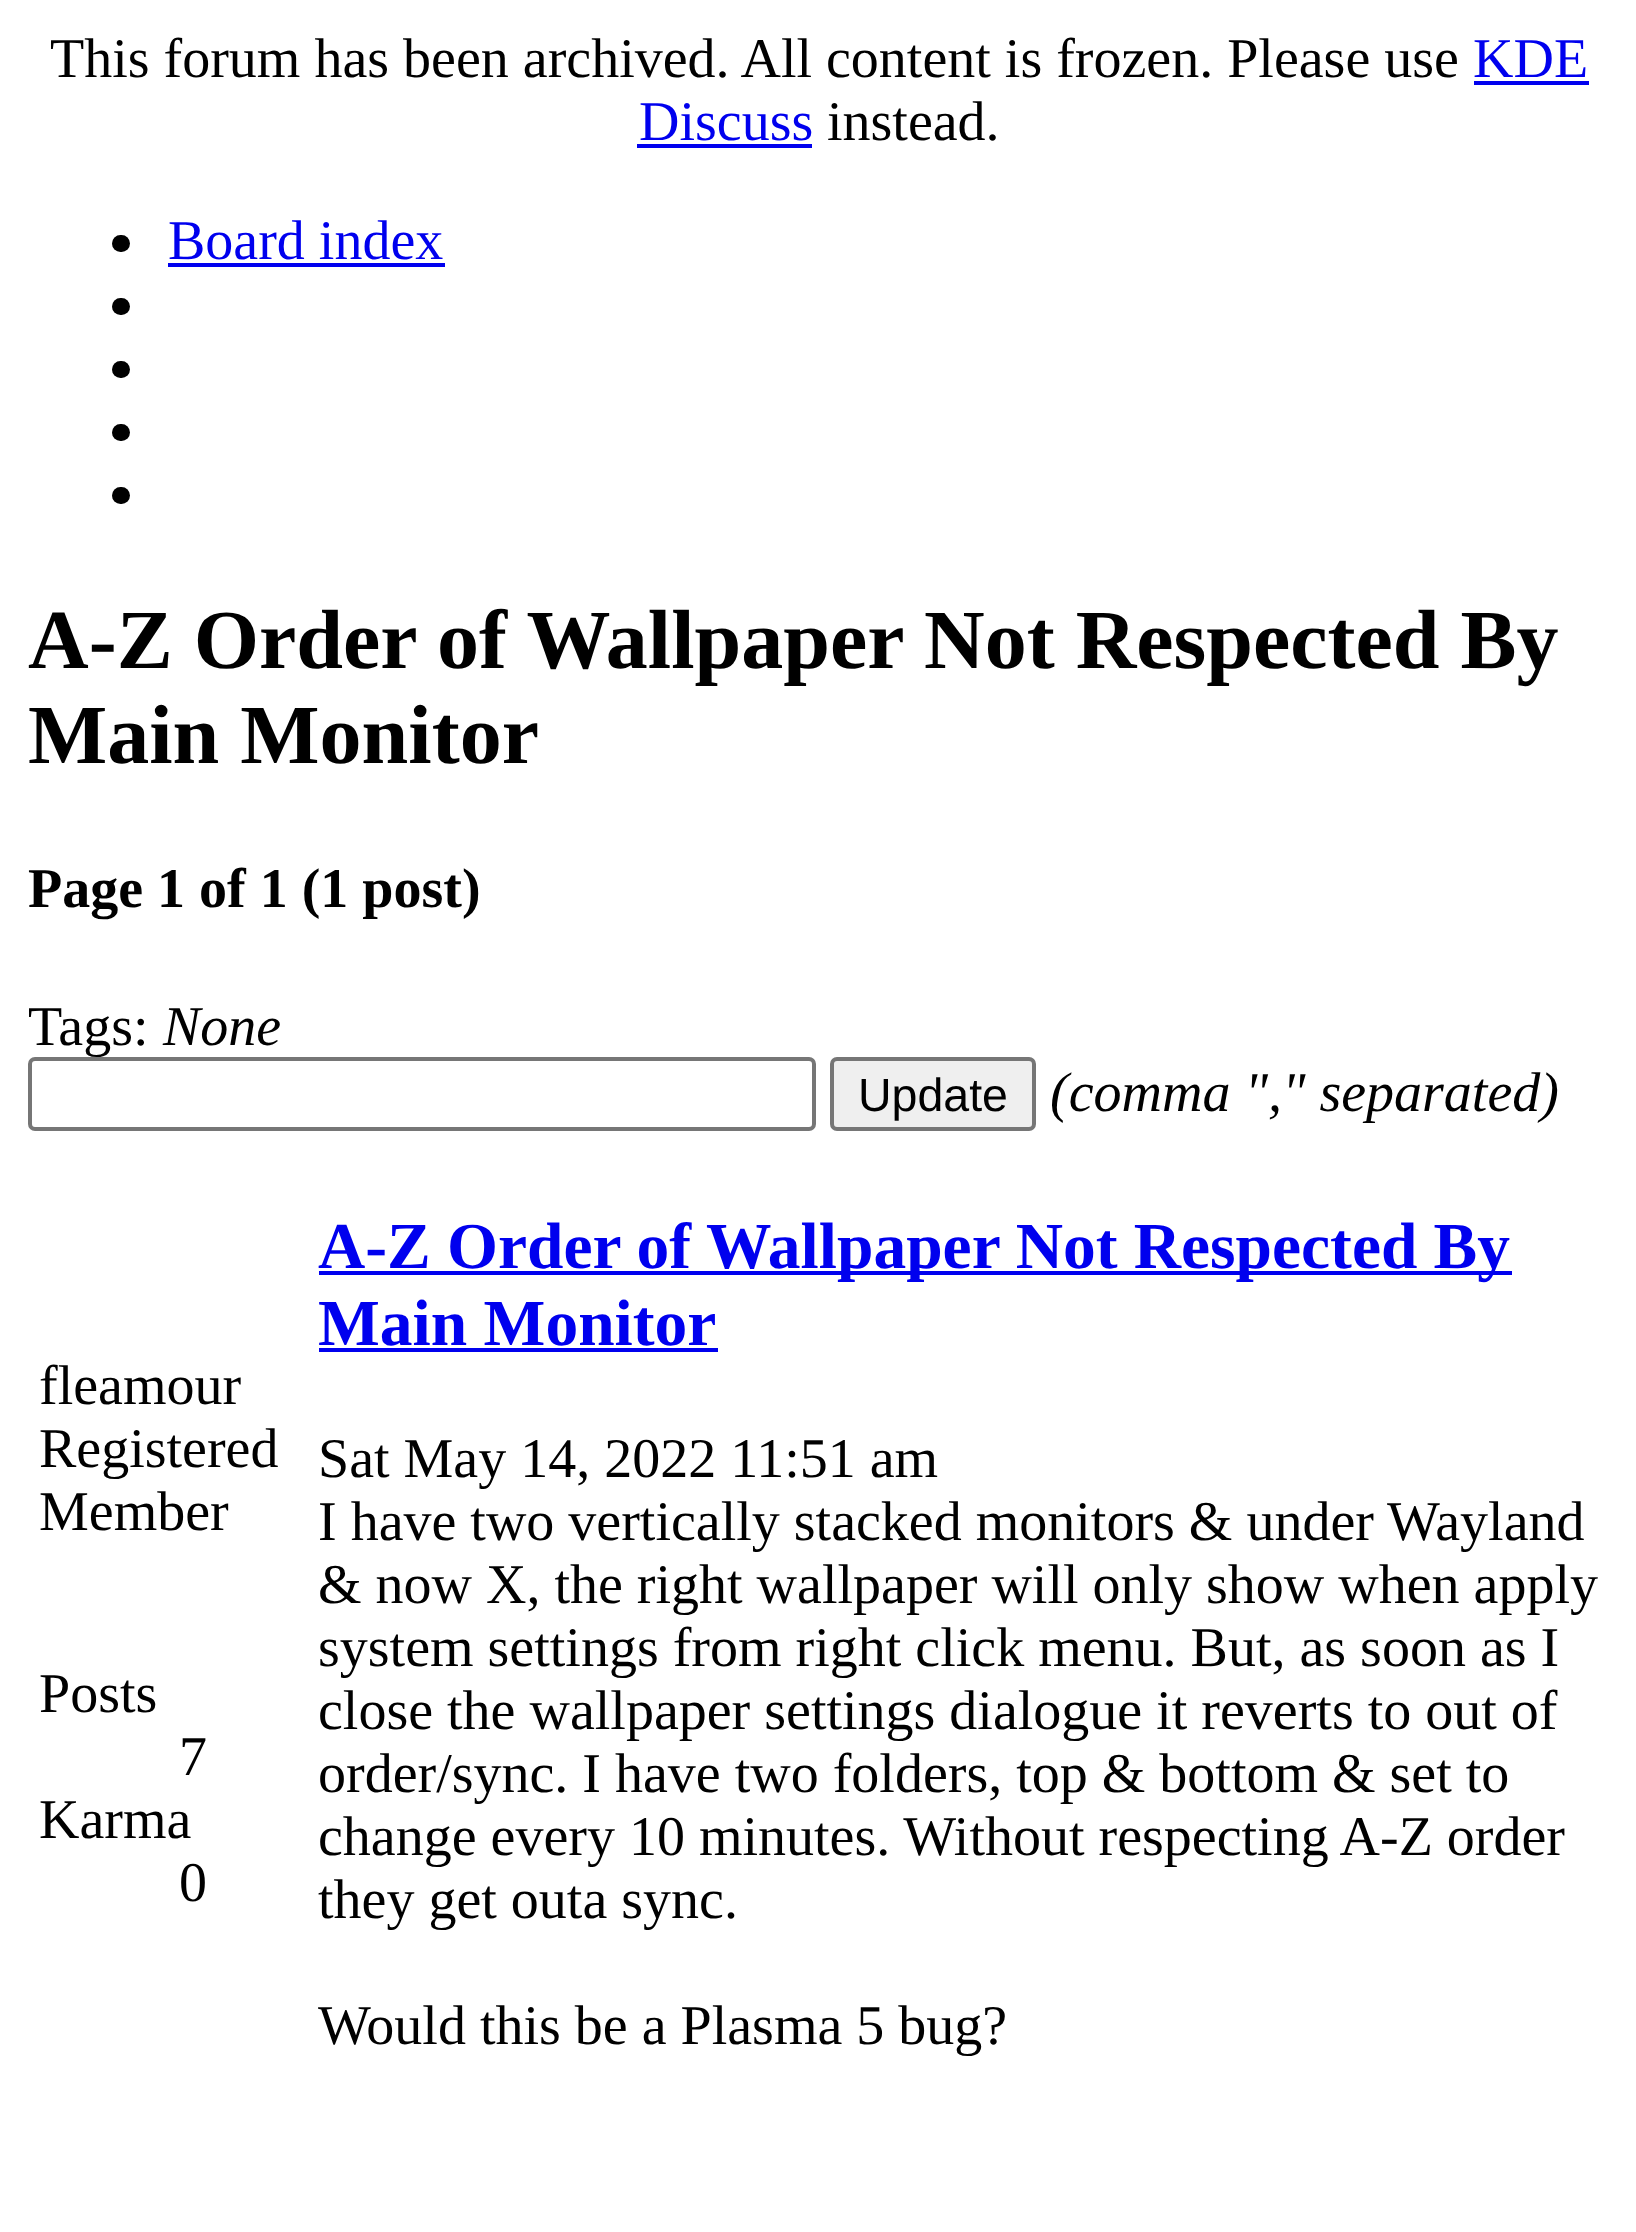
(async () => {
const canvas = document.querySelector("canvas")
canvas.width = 1636
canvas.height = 2232
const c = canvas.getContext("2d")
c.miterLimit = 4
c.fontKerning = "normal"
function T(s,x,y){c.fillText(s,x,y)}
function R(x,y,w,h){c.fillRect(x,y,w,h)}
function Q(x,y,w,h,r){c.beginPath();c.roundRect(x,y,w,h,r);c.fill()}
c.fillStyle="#fff"
R(0,0,1636,2232)
c.font="56px Liberation Serif"
c.fillStyle="#000"
T("This forum has been archived. All content is frozen. Please use",50,77)
c.fillStyle="#00e"
T("KDE",1473,77)
R(1474,81,115,4)
T("Discuss",639,140)
R(637,144,175,4)
c.fillStyle="#000"
T("instead.",827,140)
Q(112,235,18,17,8.5)
c.fillStyle="#00e"
T("Board index",168,259)
R(168,263,277,4)
c.fillStyle="#000"
Q(112,298,18,17,8.5)
Q(112,361,18,17,8.5)
Q(112,424,18,17,8.5)
Q(112,487,18,17,8.5)
c.font="bold 84px Liberation Serif"
T("A-Z Order of Wallpaper Not Respected By",28,668)
T("Main Monitor",28,763)
c.font="bold 56px Liberation Serif"
T("Page 1 of 1 (1 post)",28,907)
c.font="56px Liberation Serif"
T("Tags:",28,1045)
c.font="italic 56px Liberation Serif"
T("None",163,1045)
c.fillStyle="#fff"
c.beginPath()
c.roundRect(30,1059,784,70,5)
c.fill()
c.strokeStyle="#767676"
c.lineWidth=4
c.stroke()
c.fillStyle="#efefef"
c.beginPath()
c.roundRect(832,1059,202,70,5)
c.fill()
c.stroke()
c.font="46.5px Liberation Sans"
c.fillStyle="#000"
T("Update",858,1111)
c.font="italic 56px Liberation Serif"
T("(comma \",\" separated)",1050,1111)
c.font="56px Liberation Serif"
T("fleamour",39,1404)
T("Registered",39,1467)
T("Member",39,1530)
T("Posts",39,1712)
T("7",179,1775)
T("Karma",39,1838)
T("0",179,1901)
c.fillStyle="#00e"
R(319,1271,1193,4)
c.wordSpacing="-0.25px"
c.font="bold 65.5px Liberation Serif"
T("A-Z Order of Wallpaper Not Respected By",318,1268)
c.wordSpacing="0px"
T("Main Monitor",318,1345)
R(319,1348,399,4)
c.font="56px Liberation Serif"
c.fillStyle="#000"
T("Sat May 14, 2022 11:51 am",318,1477)
T("I have two vertically stacked monitors & under Wayland",318,1540)
T("& now X, the right wallpaper will only show when apply",318,1603)
T("system settings from right click menu. But, as soon as I",318,1666)
T("close the wallpaper settings dialogue it reverts to out of",318,1729)
T("order/sync. I have two folders, top & bottom & set to",318,1792)
T("change every 10 minutes. Without respecting A-Z order",318,1855)
T("they get outa sync.",318,1918)
T("Would this be a Plasma 5 bug?",318,2044)
})()
